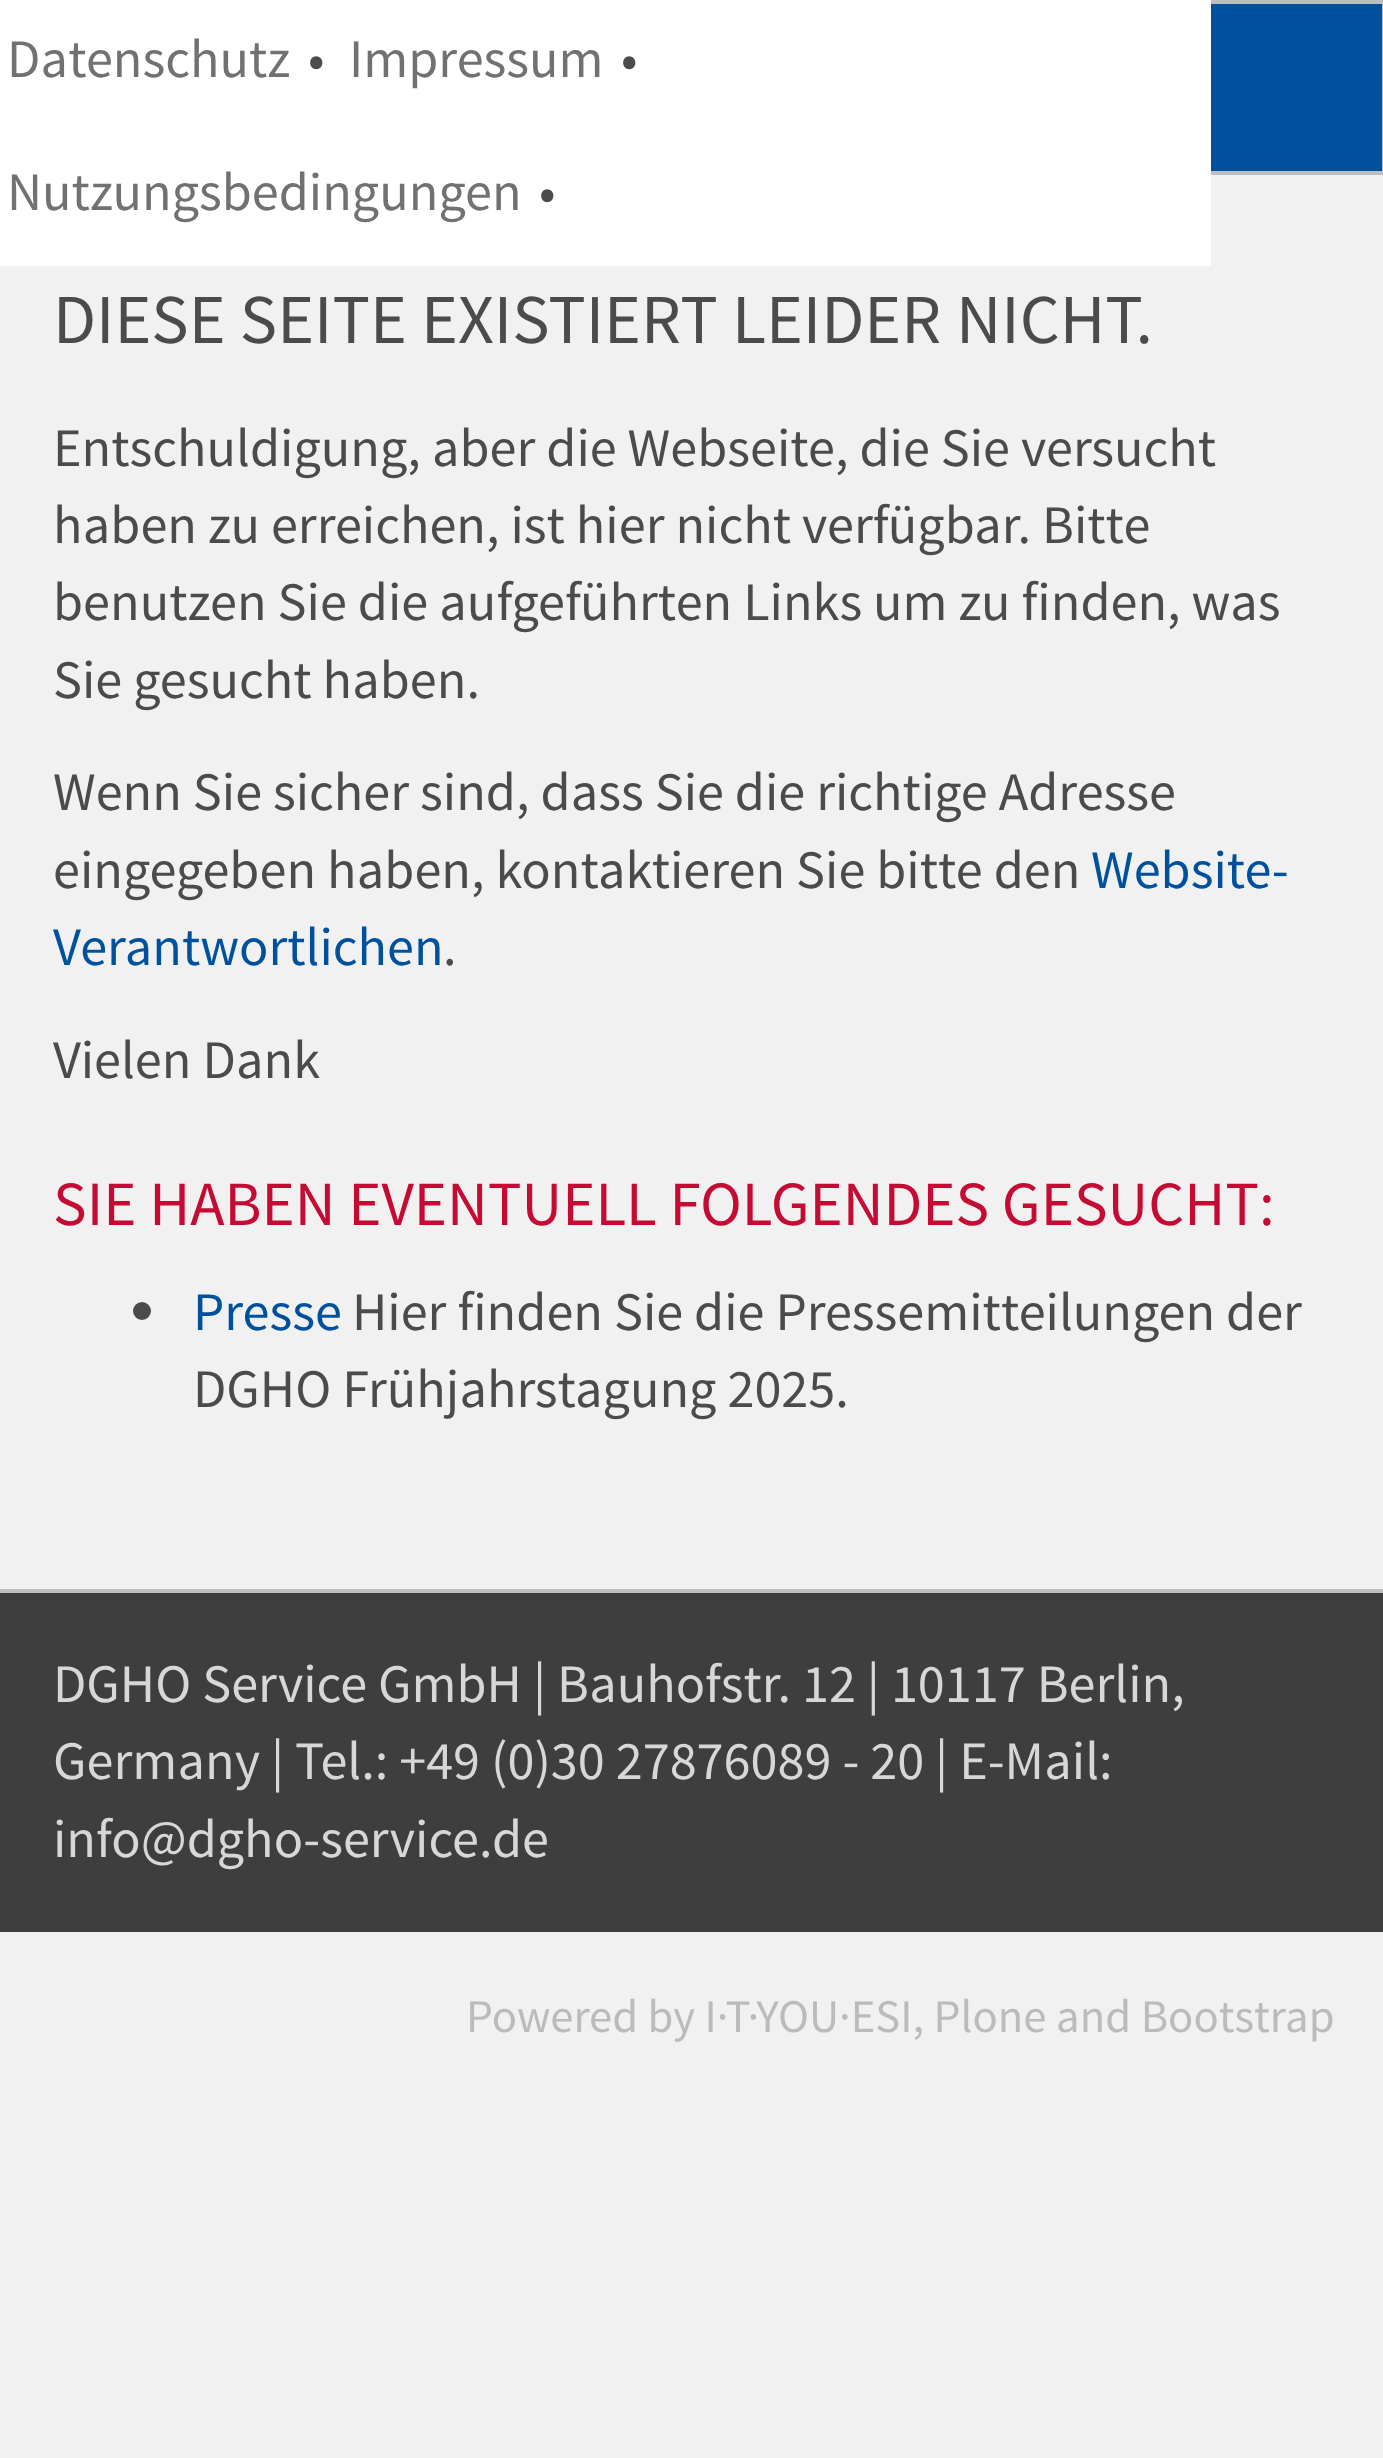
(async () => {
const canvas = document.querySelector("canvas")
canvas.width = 1383
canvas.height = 2458
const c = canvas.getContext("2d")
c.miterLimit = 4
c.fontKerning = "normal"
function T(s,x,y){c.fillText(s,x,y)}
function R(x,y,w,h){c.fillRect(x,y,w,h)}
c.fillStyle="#f1f1f1"
R(0,0,1383,2458)
c.fillStyle="#00519d"
R(1211,4,171,167)
c.strokeStyle="#bdbebf"
c.lineWidth=4
c.strokeRect(2,2,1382,171)
c.fillStyle="#fff"
R(0,0,1211,266)
c.font="54.25px Source Sans Pro"
c.fillStyle="#707173"
T("Datenschutz",7,77)
c.fillStyle="#4a4b4c"
T("•",308,77)
c.fillStyle="#707173"
T("Impressum",349,77)
c.fillStyle="#4a4b4c"
T("•",621,77)
c.fillStyle="#707173"
T("Nutzungsbedingungen",7,210)
c.fillStyle="#4a4b4c"
T("•",539,210)
c.font="70px Source Sans Pro"
T("DIESE SEITE EXISTIERT LEIDER NICHT.",53,343)
c.font="54.25px Source Sans Pro"
T("Entschuldigung, aber die Webseite, die Sie versucht",53,466)
T("haben zu erreichen, ist hier nicht verfügbar. Bitte",53,543)
T("benutzen Sie die aufgeführten Links um zu finden, was",53,620)
T("Sie gesucht haben.",53,698)
T("Wenn Sie sicher sind, dass Sie die richtige Adresse",53,810)
T("eingegeben haben, kontaktieren Sie bitte den",53,888)
c.fillStyle="#00519d"
T("Website-",1091,888)
T("Verantwortlichen",53,965)
c.fillStyle="#4a4b4c"
T(".",443,965)
T("Vielen Dank",53,1078)
c.font="63px Source Sans Pro"
c.fillStyle="#c50b34"
T("SIE HABEN EVENTUELL FOLGENDES GESUCHT:",53,1225)
c.fillStyle="#4a4b4c"
c.beginPath()
c.arc(142,1311,9,0,7)
c.fill()
c.font="54.25px Source Sans Pro"
c.fillStyle="#00519d"
T("Presse",193,1330)
c.fillStyle="#4a4b4c"
T("Hier finden Sie die Pressemitteilungen der",352,1330)
T("DGHO Frühjahrstagung 2025.",193,1407)
c.fillStyle="#3e3e3f"
R(0,1593,1383,339)
c.fillStyle="#bdbebf"
R(0,1589,1383,4)
c.fillStyle="#d7d7d8"
T("DGHO Service GmbH | Bauhofstr. 12 | 10117 Berlin,",53,1702)
T("Germany | Tel.: +49 (0)30 27876089 - 20 | E-Mail:",53,1779)
T("info@dgho-service.de",53,1857)
c.font="46.7px Source Sans Pro"
c.fillStyle="#bbb"
T("Powered by I·T·YOU·ESI, Plone and Bootstrap",466,2032)
})()
